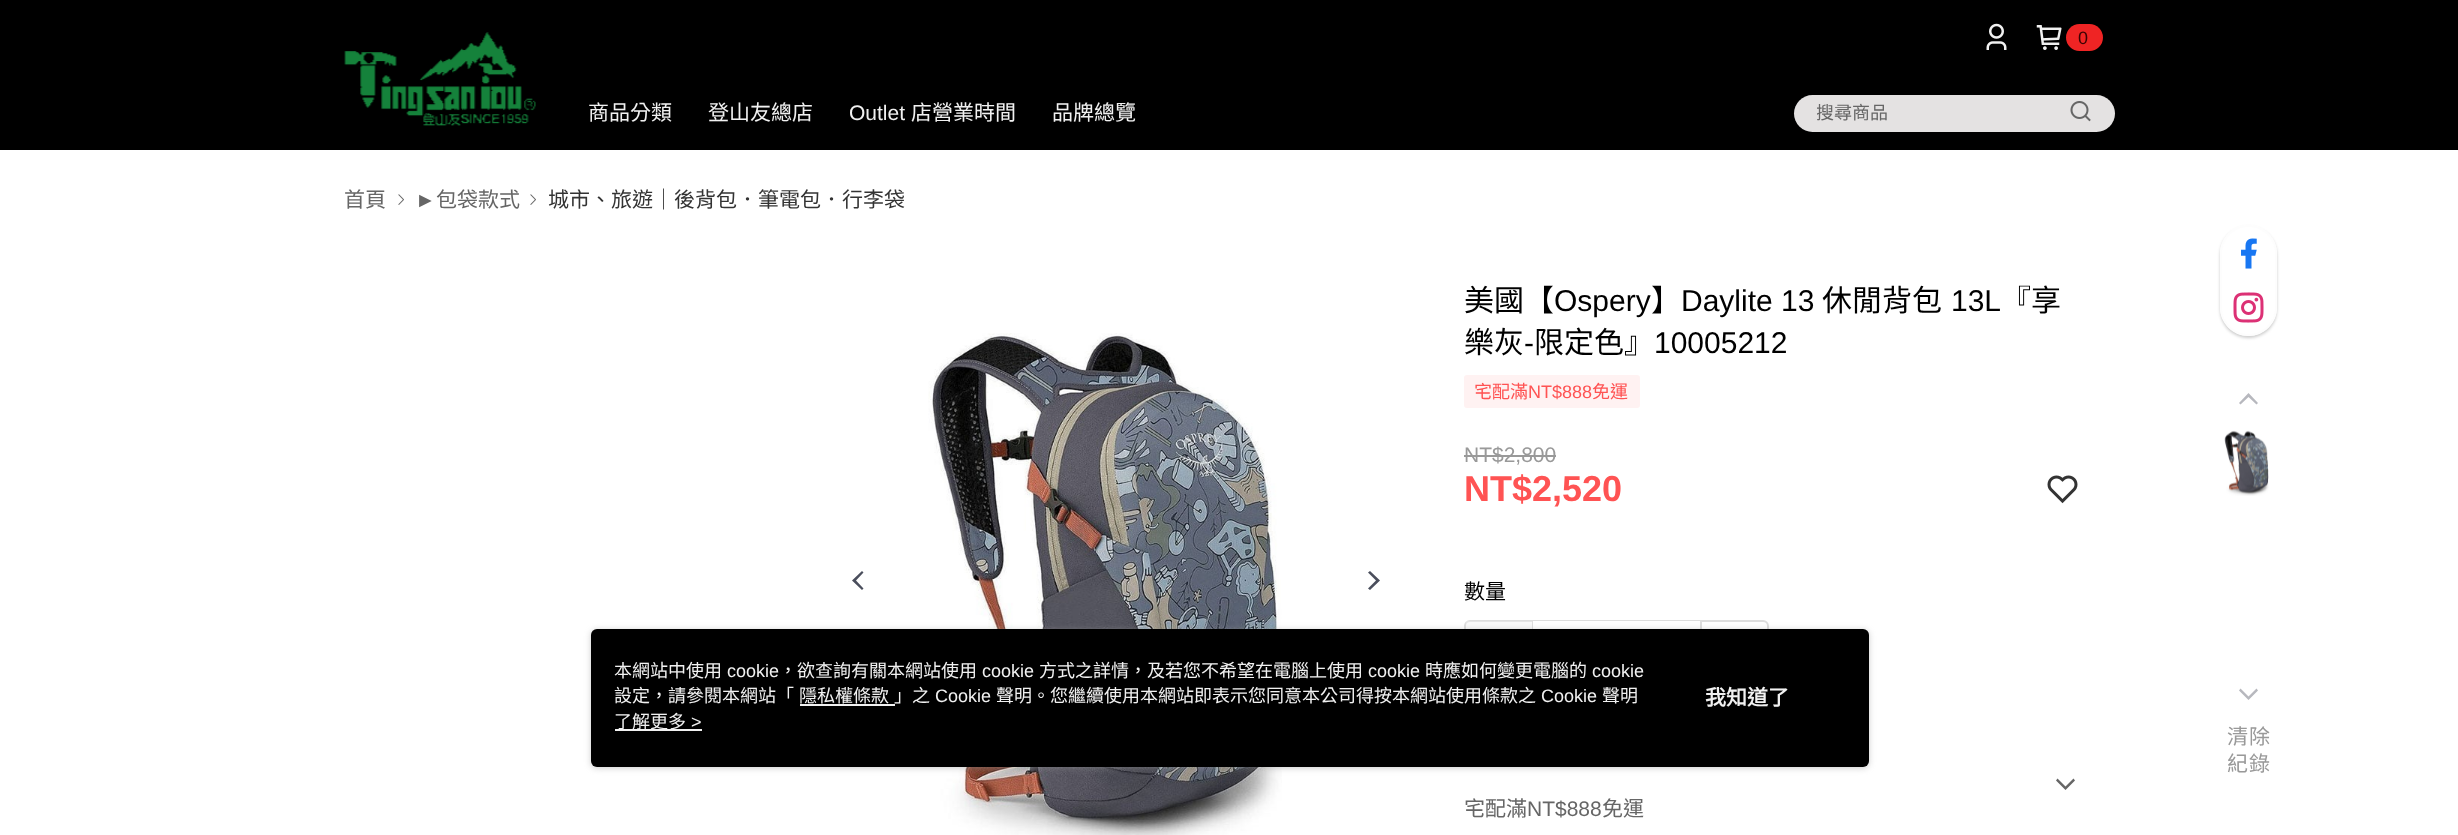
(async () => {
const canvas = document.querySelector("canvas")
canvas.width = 2458
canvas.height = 835
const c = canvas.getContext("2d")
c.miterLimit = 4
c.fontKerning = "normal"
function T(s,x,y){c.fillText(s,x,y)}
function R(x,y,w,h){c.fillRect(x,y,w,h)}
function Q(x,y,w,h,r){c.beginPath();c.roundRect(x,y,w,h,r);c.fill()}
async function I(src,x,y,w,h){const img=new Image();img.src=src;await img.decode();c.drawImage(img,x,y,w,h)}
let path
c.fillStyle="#fff"
R(0,0,2458,835)
c.fillStyle="#000"
R(0,0,2458,150)
await I("1.png",344,32,192,94)
await I("2.png",1986,23,21,27)
await I("3.png",2036,25,26,25)
c.fillStyle="#ef2424"
Q(2066,24,37,27,13.5)
c.font="18px Liberation Sans"
c.fillStyle="#390303"
T("0",2078,44)
c.font="21px Noto Sans CJK TC"
c.fillStyle="#f1f1f1"
T("商品分類",588,120)
T("登山友總店",708,120)
c.font="21px Liberation Sans"
T("Outlet",849,120)
c.font="21px Noto Sans CJK TC"
T("店營業時間",911,120)
T("品牌總覽",1052,120)
c.fillStyle="#e4e2e2"
Q(1794,95,321,37,18.5)
c.save()
c.beginPath()
c.rect(1817,98,228,25)
c.clip()
c.font="18px Noto Sans CJK TC"
c.fillStyle="#666"
T("搜尋商品",1816,119)
c.restore()
await I("4.png",2070,101,21,21)
c.fillStyle="#666"
T("首頁",344,207)
await I("5.png",398,194,6,11)
c.font="21px Liberation Sans"
T("►",415,207)
c.font="21px Noto Sans CJK TC"
T("包袋款式",436,207)
await I("5.png",530,194,6,11)
c.fillStyle="#333"
T("城市、旅遊｜後背包．筆電包．行李袋",548,207)
c.fillStyle="#4a4e5c"
path = new Path2D("M863.5 572.5l-1.5-1.5l-10 9.5l10 9.5l1.5-1.5l-7.5-8z")
c.fill(path)
await I("6.png",928,333,354,502)
path = new Path2D("M1368 588.5l2 1.5l10-9.5l-10-9.5l-2 1.5l8 8z")
c.fill(path)
c.font="30px Noto Sans CJK TC"
c.fillStyle="#000"
T("美國【",1464,311)
c.font="30px Liberation Sans"
T("Ospery",1554,311)
c.font="30px Noto Sans CJK TC"
T("】",1651,311)
c.font="30px Liberation Sans"
T("Daylite 13",1681,311)
c.font="30px Noto Sans CJK TC"
T("休閒背包",1822,311)
c.font="30px Liberation Sans"
T("13L",1951,311)
c.font="30px Noto Sans CJK TC"
T("『享",2001,311)
T("樂灰",1464,353)
c.font="30px Liberation Sans"
T("-",1524,353)
c.font="30px Noto Sans CJK TC"
T("限定色』",1534,353)
c.font="30px Liberation Sans"
T("10005212",1654,353)
c.fillStyle="#fff2f2"
c.beginPath()
c.roundRect(1465,376,174,31,2)
c.fill()
c.strokeStyle="#fff2f2"
c.lineWidth=2
c.stroke()
c.font="18px Noto Sans CJK TC"
c.fillStyle="#ff5353"
T("宅配滿",1474,398)
c.font="18px Liberation Sans"
T("NT$888",1528,398)
c.font="18px Noto Sans CJK TC"
T("免運",1592,398)
c.font="21px Liberation Sans"
c.fillStyle="#999"
T("NT$2,800",1464,462)
R(1464,455,92,2)
c.font="bold 36px Liberation Sans"
c.fillStyle="#ff5353"
T("NT$2,520",1464,501)
await I("7.png",2047,475,31,29)
c.font="21px Noto Sans CJK TC"
c.fillStyle="#000"
T("數量",1464,599)
c.beginPath()
c.roundRect(1465,621,303,67,5)
c.strokeStyle="#ddd"
c.stroke()
c.fillStyle="#f1f1f166"
R(1466,621,66,8)
c.fillStyle="#ddd"
R(1700,621,2,8)
R(1532,621,1,8)
c.fillStyle="#fff"
R(1533,621,167,1)
c.fillStyle="#666"
path = new Path2D("M2057.5 778.5l-1.5 2l9.5 9.5l9.5-9.5l-1.5-2l-8 8z")
c.fill(path)
T("宅配滿",1464,816)
c.font="21px Liberation Sans"
T("NT$888",1527,816)
c.font="21px Noto Sans CJK TC"
T("免運",1602,816)
c.save()
path = new Path2D("M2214 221h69v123h-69zm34.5 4c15.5 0 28.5 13 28.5 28.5v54c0 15.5-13 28.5-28.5 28.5c-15.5 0-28.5-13-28.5-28.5v-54c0-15.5 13-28.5 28.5-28.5z")
c.clip(path,"evenodd")
c.fillStyle="#00000033"
c.filter="blur(1.5px)"
c.beginPath()
c.roundRect(2220,227,57,111,28.5)
c.fill()
c.filter="none"
c.restore()
c.fillStyle="#ffffffe6"
c.beginPath()
c.roundRect(2221,226,55,109,27.5)
c.fill()
c.strokeStyle="#fdfdfd"
c.stroke()
await I("8.png",2241,238,16,31)
await I("9.png",2233,292,31,31)
c.fillStyle="#b7b8be"
path = new Path2D("M2256.5 404.5l1.5-1.5l-9.5-10l-9.5 10l1.5 1.5l8-7.5z")
c.fill(path)
await I("10.png",2224,430,45,66)
path = new Path2D("M2240.5 688.5l-1.5 2l9.5 9.5l9.5-9.5l-1.5-2l-8 8z")
c.fill(path)
c.letterSpacing="1px"
c.fillStyle="#999"
T("清除",2227,744)
T("紀錄",2227,771)
c.fillStyle="#97979780"
c.filter="blur(3px)"
c.beginPath()
c.roundRect(591,630,1278,138,6)
c.fill()
c.filter="none"
c.fillStyle="#000"
Q(591,629,1278,138,6)
c.letterSpacing="0px"
c.font="18px Noto Sans CJK TC"
c.fillStyle="#f1f1f1"
T("本網站中使用",614,677)
c.font="18px Liberation Sans"
T("cookie",727,677)
c.font="18px Noto Sans CJK TC"
T("，欲查詢有關本網站使用",779,677)
c.font="18px Liberation Sans"
T("cookie",982,677)
c.font="18px Noto Sans CJK TC"
T("方式之詳情，及若您不希望在電腦上使用",1039,677)
c.font="18px Liberation Sans"
T("cookie",1368,677)
c.font="18px Noto Sans CJK TC"
T("時應如何變更電腦的",1425,677)
c.font="18px Liberation Sans"
T("cookie",1592,677)
c.font="18px Noto Sans CJK TC"
T("設定，請參閱本網站「",614,702)
T("隱私權條款",799,702)
R(800,704,95,2)
T("」之",894,702)
c.font="18px Liberation Sans"
T("Cookie",935,702)
c.font="18px Noto Sans CJK TC"
T("聲明。您繼續使用本網站即表示您同意本公司得按本網站使用條款之",996,702)
c.font="18px Liberation Sans"
T("Cookie",1541,702)
c.font="18px Noto Sans CJK TC"
T("聲明",1602,702)
R(615,729,87,2)
T("了解更多",614,728)
c.font="18px Liberation Sans"
T(">",691,728)
c.font="bold 21px Noto Sans CJK TC"
T("我知道了",1705,705)
})()
